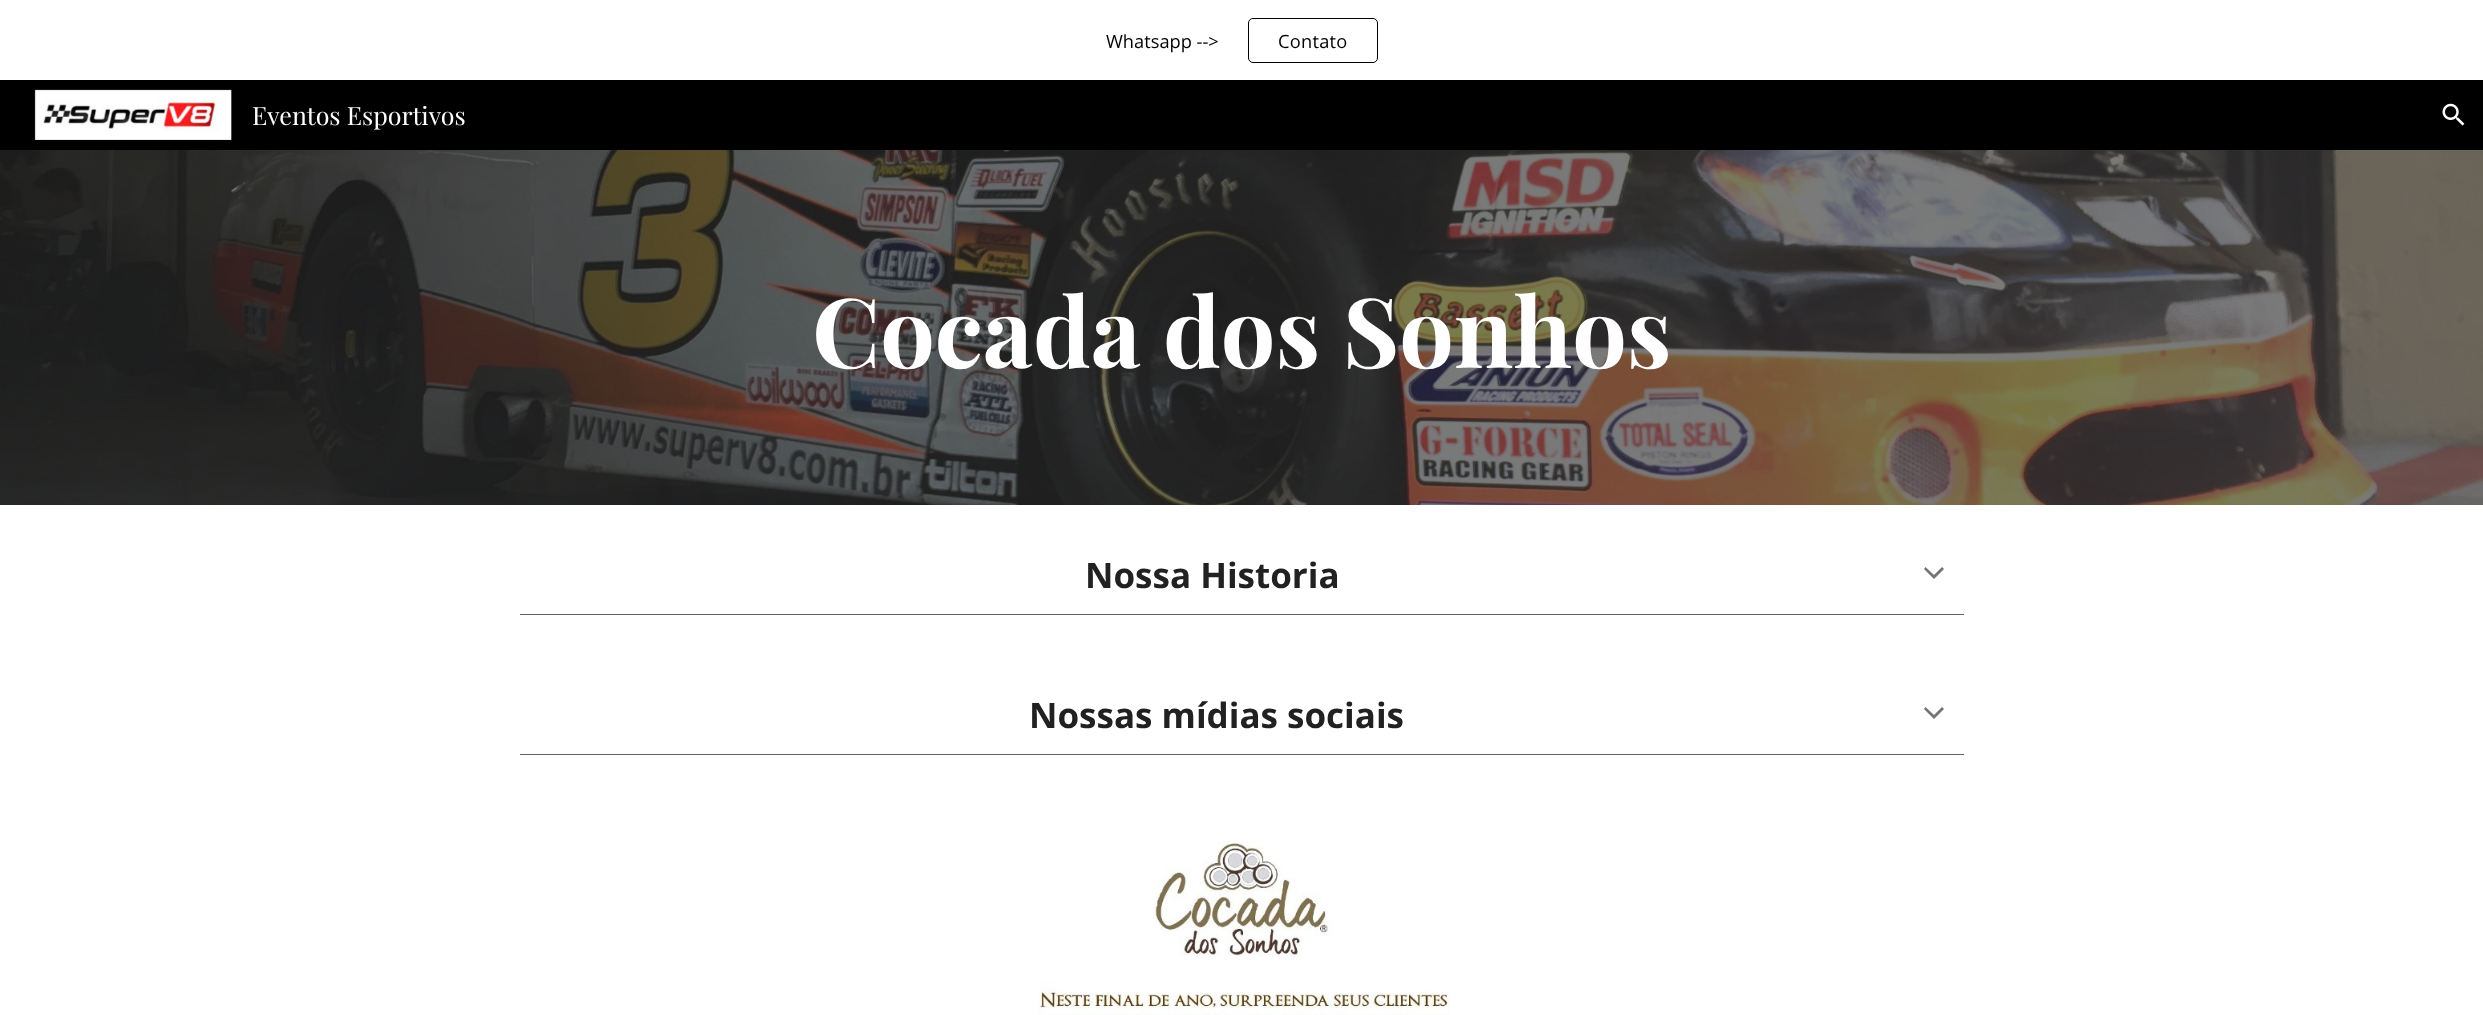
(async () => {
const canvas = document.querySelector("canvas")
canvas.width = 2483
canvas.height = 1015
const c = canvas.getContext("2d")
c.miterLimit = 4
c.fontKerning = "normal"
function T(s,x,y){c.fillText(s,x,y)}
function R(x,y,w,h){c.fillRect(x,y,w,h)}
async function I(src,x,y,w,h){const img=new Image();img.src=src;await img.decode();c.drawImage(img,x,y,w,h)}
let path
c.fillStyle="#fff"
R(0,0,2483,1015)
c.font="18.25px Open Sans"
c.fillStyle="#000"
T("Whatsapp -->",1106,48)
c.beginPath()
c.roundRect(1248.5,18.5,129,44,4.5)
c.strokeStyle="#000"
c.stroke()
c.letterSpacing="0.25px"
T("Contato",1278,48)
R(0,80,2483,70)
await I("1.png",34,89,198,51)
c.letterSpacing="0px"
c.font="25px Playfair Display"
c.fillStyle="#fff"
T("Eventos Esportivos",252,125)
await I("2.png",2442,103,23,23)
await I("3.png",0,150,2483,355)
c.font="bold 96.75px Playfair Display"
T("Cocada dos Sonhos",812,368)
c.fillStyle="#5f6368"
R(520,614,1444,1)
c.font="bold 35px Open Sans"
c.fillStyle="#212121"
T("Nossa Historia",1085,588)
c.fillStyle="#757575"
path = new Path2D("M1925.5 567l-1.5 2l10 10l10-10l-2-2l-8 8")
c.fill(path)
c.fillStyle="#5f6368"
R(520,754,1444,1)
c.fillStyle="#212121"
T("Nossas mídias sociais",1029,728)
c.fillStyle="#757575"
path = new Path2D("M1925.5 707l-1.5 2l10 10l10-10l-2-2l-8 8")
c.fill(path)
await I("4.png",1037,840,413,175)
})()
